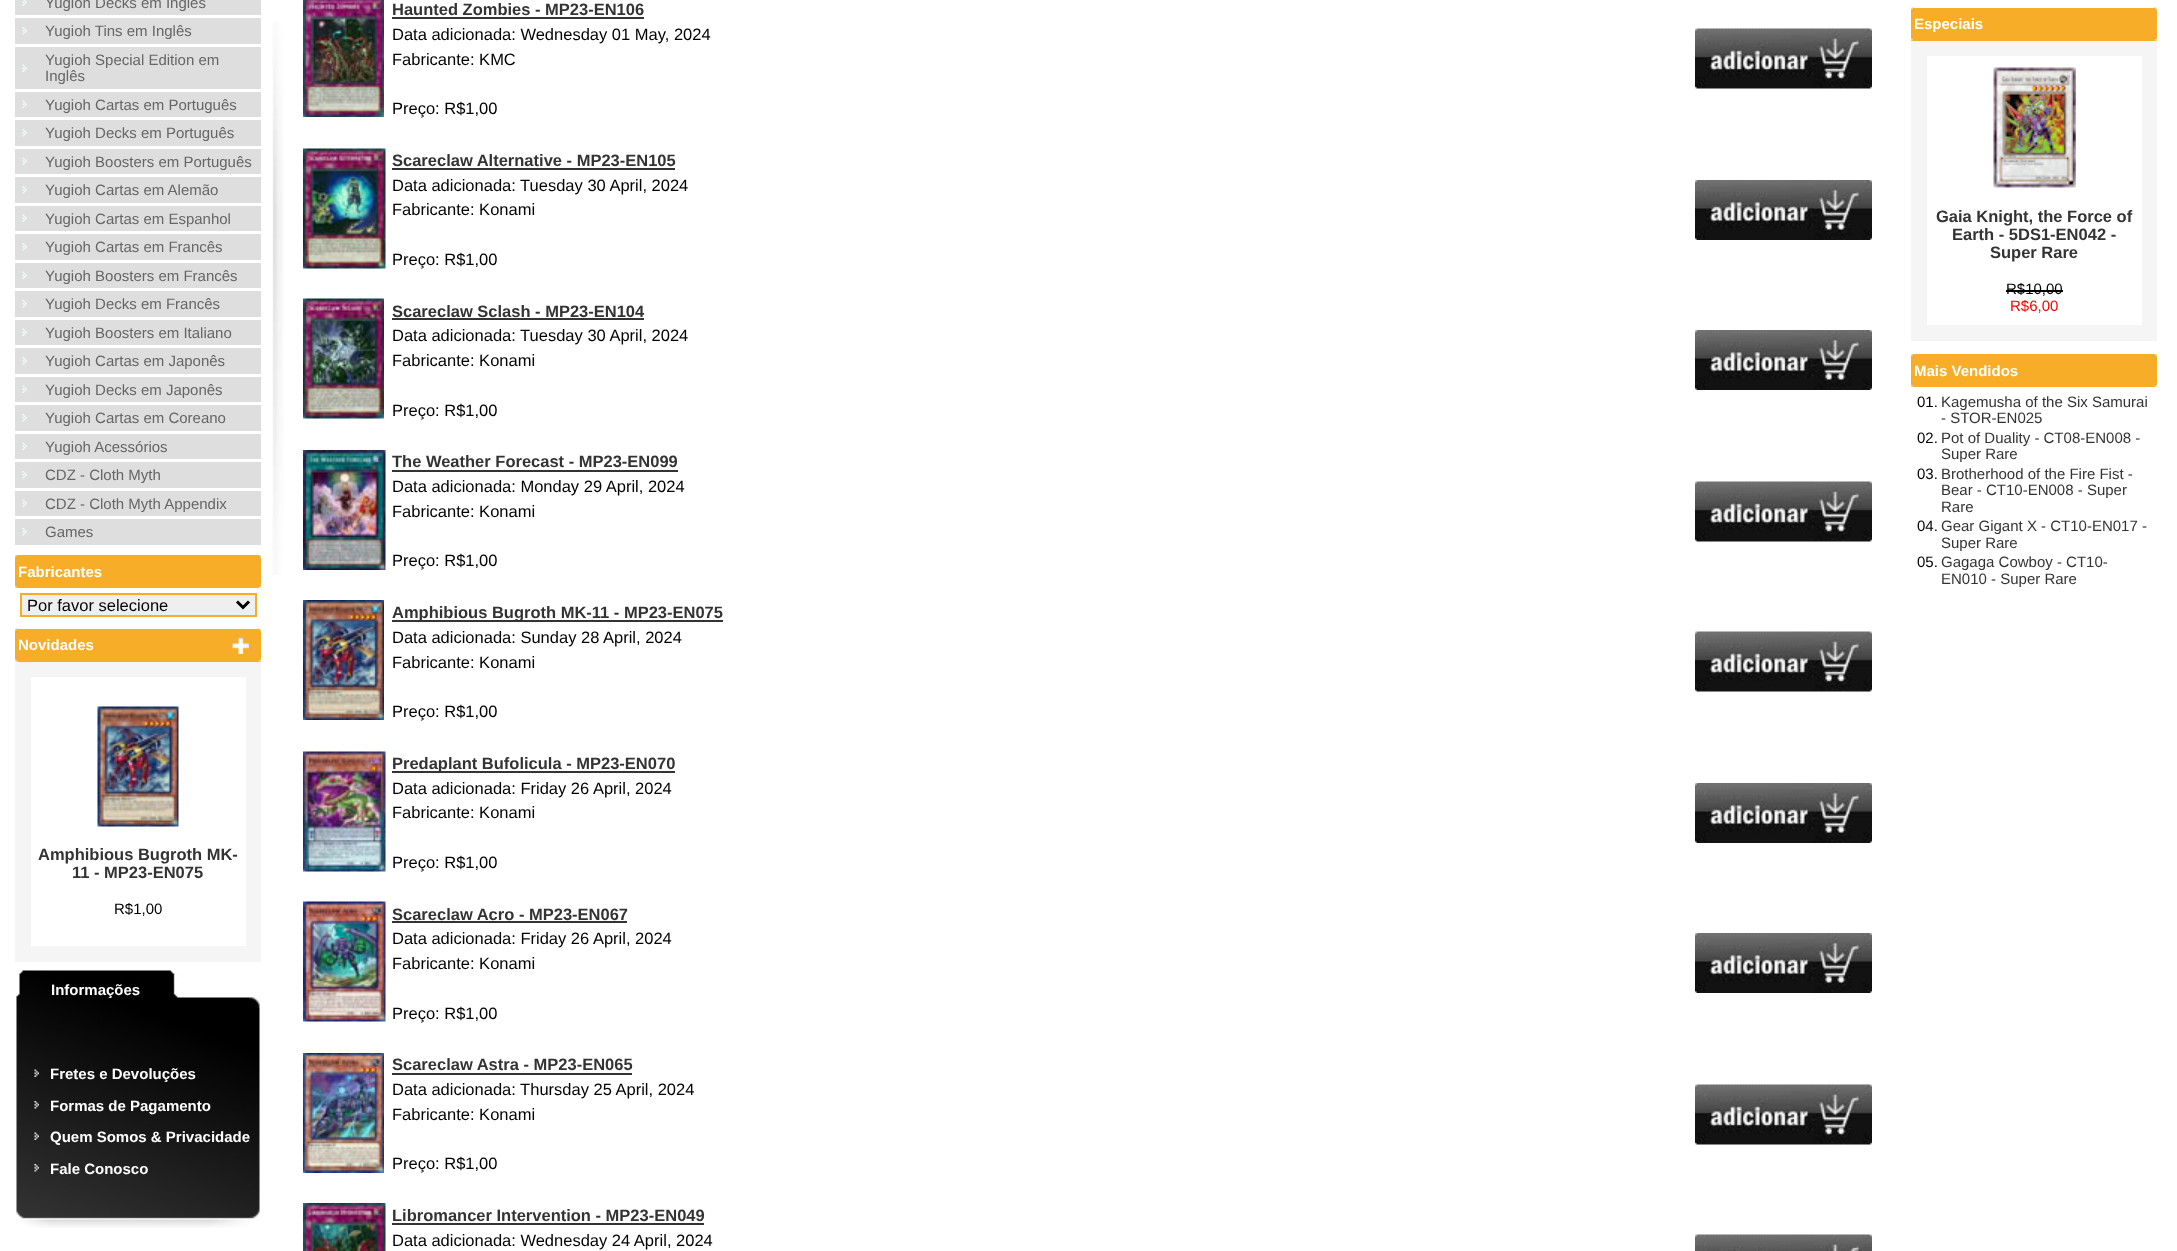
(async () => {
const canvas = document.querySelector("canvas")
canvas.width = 2177
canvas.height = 1251
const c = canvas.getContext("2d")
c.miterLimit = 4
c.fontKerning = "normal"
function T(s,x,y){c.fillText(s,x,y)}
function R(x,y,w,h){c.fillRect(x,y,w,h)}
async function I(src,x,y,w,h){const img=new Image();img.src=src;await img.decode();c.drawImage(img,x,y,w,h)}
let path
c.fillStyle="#fff"
R(0,0,2177,1251)
await I("1.png",272,22,12,553)
c.fillStyle="#dedede"
R(15,0,246,15)
await I("2.png",22,0,5,6)
c.font="15px Liberation Sans"
c.fillStyle="#666"
T("Yugioh Decks em Inglês",45,8)
c.fillStyle="#dedede"
R(15,18,246,26)
await I("3.png",22,27,5,8)
c.fillStyle="#666"
T("Yugioh Tins em Inglês",45,36)
c.fillStyle="#dedede"
R(15,47,246,42)
await I("4.png",22,64,5,8)
c.fillStyle="#666"
T("Yugioh Special Edition em",45,65)
T("Inglês",45,81)
c.fillStyle="#dedede"
R(15,92,246,25)
await I("4.png",22,100,5,8)
c.fillStyle="#666"
T("Yugioh Cartas em Português",45,110)
c.fillStyle="#dedede"
R(15,120,246,26)
await I("3.png",22,129,5,8)
c.fillStyle="#666"
T("Yugioh Decks em Português",45,138)
c.fillStyle="#dedede"
R(15,149,246,25)
await I("4.png",22,157,5,8)
c.fillStyle="#666"
T("Yugioh Boosters em Português",45,167)
c.fillStyle="#dedede"
R(15,177,246,26)
await I("3.png",22,186,5,8)
c.fillStyle="#666"
T("Yugioh Cartas em Alemão",45,195)
c.fillStyle="#dedede"
R(15,206,246,25)
await I("4.png",22,214,5,8)
c.fillStyle="#666"
T("Yugioh Cartas em Espanhol",45,224)
c.fillStyle="#dedede"
R(15,234,246,26)
await I("3.png",22,243,5,8)
c.fillStyle="#666"
T("Yugioh Cartas em Francês",45,252)
c.fillStyle="#dedede"
R(15,263,246,25)
await I("4.png",22,271,5,8)
c.fillStyle="#666"
T("Yugioh Boosters em Francês",45,281)
c.fillStyle="#dedede"
R(15,291,246,26)
await I("3.png",22,300,5,8)
c.fillStyle="#666"
T("Yugioh Decks em Francês",45,309)
c.fillStyle="#dedede"
R(15,320,246,25)
await I("4.png",22,328,5,8)
c.fillStyle="#666"
T("Yugioh Boosters em Italiano",45,338)
c.fillStyle="#dedede"
R(15,348,246,26)
await I("3.png",22,357,5,8)
c.fillStyle="#666"
T("Yugioh Cartas em Japonês",45,366)
c.fillStyle="#dedede"
R(15,377,246,25)
await I("4.png",22,385,5,8)
c.fillStyle="#666"
T("Yugioh Decks em Japonês",45,395)
c.fillStyle="#dedede"
R(15,405,246,26)
await I("3.png",22,414,5,8)
c.fillStyle="#666"
T("Yugioh Cartas em Coreano",45,423)
c.fillStyle="#dedede"
R(15,434,246,25)
await I("4.png",22,442,5,8)
c.fillStyle="#666"
T("Yugioh Acessórios",45,452)
c.fillStyle="#dedede"
R(15,462,246,26)
await I("3.png",22,471,5,8)
c.fillStyle="#666"
T("CDZ - Cloth Myth",45,480)
c.fillStyle="#dedede"
R(15,491,246,25)
await I("4.png",22,499,5,8)
c.fillStyle="#666"
T("CDZ - Cloth Myth Appendix",45,509)
c.fillStyle="#dedede"
R(15,519,246,26)
await I("3.png",22,528,5,8)
c.fillStyle="#666"
T("Games",45,537)
await I("5.png",15,555,3,33)
c.fillStyle="#f7ad28"
R(18,555,240,33)
c.font="bold 15px Liberation Sans"
c.fillStyle="#fff"
T("Fabricantes",18,577)
await I("6.png",258,555,3,33)
c.fillStyle="#efefef"
c.beginPath()
c.rect(21,594,235,22)
c.fill()
c.strokeStyle="#f7ad28"
c.lineWidth=2
c.stroke()
path = new Path2D("M237 601.5l6 6l6-6")
c.strokeStyle="#000"
c.lineWidth=3
c.stroke(path)
c.font="16.5px Liberation Sans"
c.fillStyle="#000"
T("Por favor selecione",27,611)
await I("7.png",15,628,3,34)
c.fillStyle="#f7ad28"
R(18,629,243,33)
c.font="bold 15px Liberation Sans"
c.fillStyle="#fff"
T("Novidades",18,650)
await I("8.png",232,637,17,17)
await I("9.png",258,628,3,34)
c.strokeStyle="#f5f5f5"
c.lineWidth=8
c.strokeRect(19,666,238,292)
c.strokeRect(27,673,223,277)
await I("10.png",97,706,82,121)
c.font="bold 16.5px Liberation Sans"
c.fillStyle="#333"
T("Amphibious Bugroth MK-",38,860)
T("11 - MP23-EN075",72,878)
c.font="15px Liberation Sans"
c.fillStyle="#000"
T("R$1,00",114,914)
await I("11.png",16,970,244,258)
c.font="bold 15px Liberation Sans"
c.fillStyle="#fff"
T("Informações",51,995)
await I("12.png",34,1069,5,8)
T("Fretes e Devoluções",50,1079)
await I("13.png",34,1101,5,8)
T("Formas de Pagamento",50,1111)
await I("14.png",34,1132,5,8)
T("Quem Somos & Privacidade",50,1142)
await I("15.png",34,1164,5,8)
T("Fale Conosco",50,1174)
await I("16.png",303,0,81,117)
c.font="bold 16.5px Liberation Sans"
c.fillStyle="#333"
T("Haunted Zombies - MP23-EN106",392,15)
R(392,17,252,2)
c.font="16.5px Liberation Sans"
c.fillStyle="#000"
T("Data adicionada: Wednesday 01 May, 2024",392,40)
T("Fabricante: KMC",392,65)
T("Preço: R$1,00",392,114)
await I("17.png",1695,28,177,61)
await I("18.png",303,148,83,121)
c.font="bold 16.5px Liberation Sans"
c.fillStyle="#333"
T("Scareclaw Alternative - MP23-EN105",392,166)
R(392,168,283,2)
c.font="16.5px Liberation Sans"
c.fillStyle="#000"
T("Data adicionada: Tuesday 30 April, 2024",392,191)
T("Fabricante: Konami",392,215)
T("Preço: R$1,00",392,265)
await I("19.png",1695,180,177,60)
await I("20.png",303,298,81,121)
c.font="bold 16.5px Liberation Sans"
c.fillStyle="#333"
T("Scareclaw Sclash - MP23-EN104",392,317)
R(392,318,252,2)
c.font="16.5px Liberation Sans"
c.fillStyle="#000"
T("Data adicionada: Tuesday 30 April, 2024",392,341)
T("Fabricante: Konami",392,366)
T("Preço: R$1,00",392,416)
await I("19.png",1695,330,177,60)
await I("21.png",303,450,83,120)
c.font="bold 16.5px Liberation Sans"
c.fillStyle="#333"
T("The Weather Forecast - MP23-EN099",392,467)
R(392,470,286,2)
c.font="16.5px Liberation Sans"
c.fillStyle="#000"
T("Data adicionada: Monday 29 April, 2024",392,492)
T("Fabricante: Konami",392,517)
T("Preço: R$1,00",392,566)
await I("17.png",1695,481,177,61)
await I("22.png",303,600,81,120)
c.fillStyle="#333"
R(392,620,331,2)
c.font="bold 16.5px Liberation Sans"
T("Amphibious Bugroth MK-11 - MP23-EN075",392,618)
c.font="16.5px Liberation Sans"
c.fillStyle="#000"
T("Data adicionada: Sunday 28 April, 2024",392,643)
T("Fabricante: Konami",392,668)
T("Preço: R$1,00",392,717)
await I("17.png",1695,631,177,61)
await I("23.png",303,751,83,121)
c.fillStyle="#333"
R(392,771,283,2)
c.font="bold 16.5px Liberation Sans"
T("Predaplant Bufolicula - MP23-EN070",392,769)
c.font="16.5px Liberation Sans"
c.fillStyle="#000"
T("Data adicionada: Friday 26 April, 2024",392,794)
T("Fabricante: Konami",392,818)
T("Preço: R$1,00",392,868)
await I("19.png",1695,783,177,60)
await I("24.png",303,901,83,121)
c.font="bold 16.5px Liberation Sans"
c.fillStyle="#333"
T("Scareclaw Acro - MP23-EN067",392,920)
R(392,921,235,2)
c.font="16.5px Liberation Sans"
c.fillStyle="#000"
T("Data adicionada: Friday 26 April, 2024",392,944)
T("Fabricante: Konami",392,969)
T("Preço: R$1,00",392,1019)
await I("19.png",1695,933,177,60)
await I("25.png",303,1053,81,120)
c.font="bold 16.5px Liberation Sans"
c.fillStyle="#333"
T("Scareclaw Astra - MP23-EN065",392,1070)
R(392,1073,240,2)
c.font="16.5px Liberation Sans"
c.fillStyle="#000"
T("Data adicionada: Thursday 25 April, 2024",392,1095)
T("Fabricante: Konami",392,1120)
T("Preço: R$1,00",392,1169)
await I("17.png",1695,1084,177,61)
await I("26.png",303,1203,83,48)
c.font="bold 16.5px Liberation Sans"
c.fillStyle="#333"
T("Libromancer Intervention - MP23-EN049",392,1221)
R(392,1223,312,2)
c.font="16.5px Liberation Sans"
c.fillStyle="#000"
T("Data adicionada: Wednesday 24 April, 2024",392,1246)
await I("27.png",1695,1234,177,17)
c.fillStyle="#f7ad28"
R(1911,40,3,1)
await I("28.png",1911,7,3,34)
R(1914,8,240,33)
c.font="bold 15px Liberation Sans"
c.fillStyle="#fff"
T("Especiais",1914,29)
c.fillStyle="#f7ad28"
R(2154,40,3,1)
await I("29.png",2154,7,3,34)
c.strokeRect(1915,45,238,292)
c.strokeRect(1923,52,223,277)
await I("30.png",1993,67,83,121)
c.font="bold 16.5px Liberation Sans"
c.fillStyle="#333"
T("Gaia Knight, the Force of",1936,222)
T("Earth - 5DS1-EN042 -",1952,240)
T("Super Rare",1990,258)
c.font="15px Liberation Sans"
c.fillStyle="#000"
T("R$10,00",2006,294)
R(2006,290,57,2)
c.fillStyle="#f00"
T("R$6,00",2010,311)
await I("31.png",1911,354,3,33)
c.fillStyle="#f7ad28"
R(1914,354,240,33)
c.font="bold 15px Liberation Sans"
c.fillStyle="#fff"
T("Mais Vendidos",1914,376)
await I("32.png",2154,354,3,33)
c.font="15px Liberation Sans"
c.fillStyle="#000"
T("01.",1917,407)
c.fillStyle="#333"
T("Kagemusha of the Six Samurai",1941,407)
T("- STOR-EN025",1941,423)
c.fillStyle="#000"
T("02.",1917,443)
c.fillStyle="#333"
T("Pot of Duality - CT08-EN008 -",1941,443)
T("Super Rare",1941,459)
c.fillStyle="#000"
T("03.",1917,479)
c.fillStyle="#333"
T("Brotherhood of the Fire Fist -",1941,479)
T("Bear - CT10-EN008 - Super",1941,495)
T("Rare",1941,512)
c.fillStyle="#000"
T("04.",1917,531)
c.fillStyle="#333"
T("Gear Gigant X - CT10-EN017 -",1941,531)
T("Super Rare",1941,548)
c.fillStyle="#000"
T("05.",1917,567)
c.fillStyle="#333"
T("Gagaga Cowboy - CT10-",1941,567)
T("EN010 - Super Rare",1941,584)
})()
